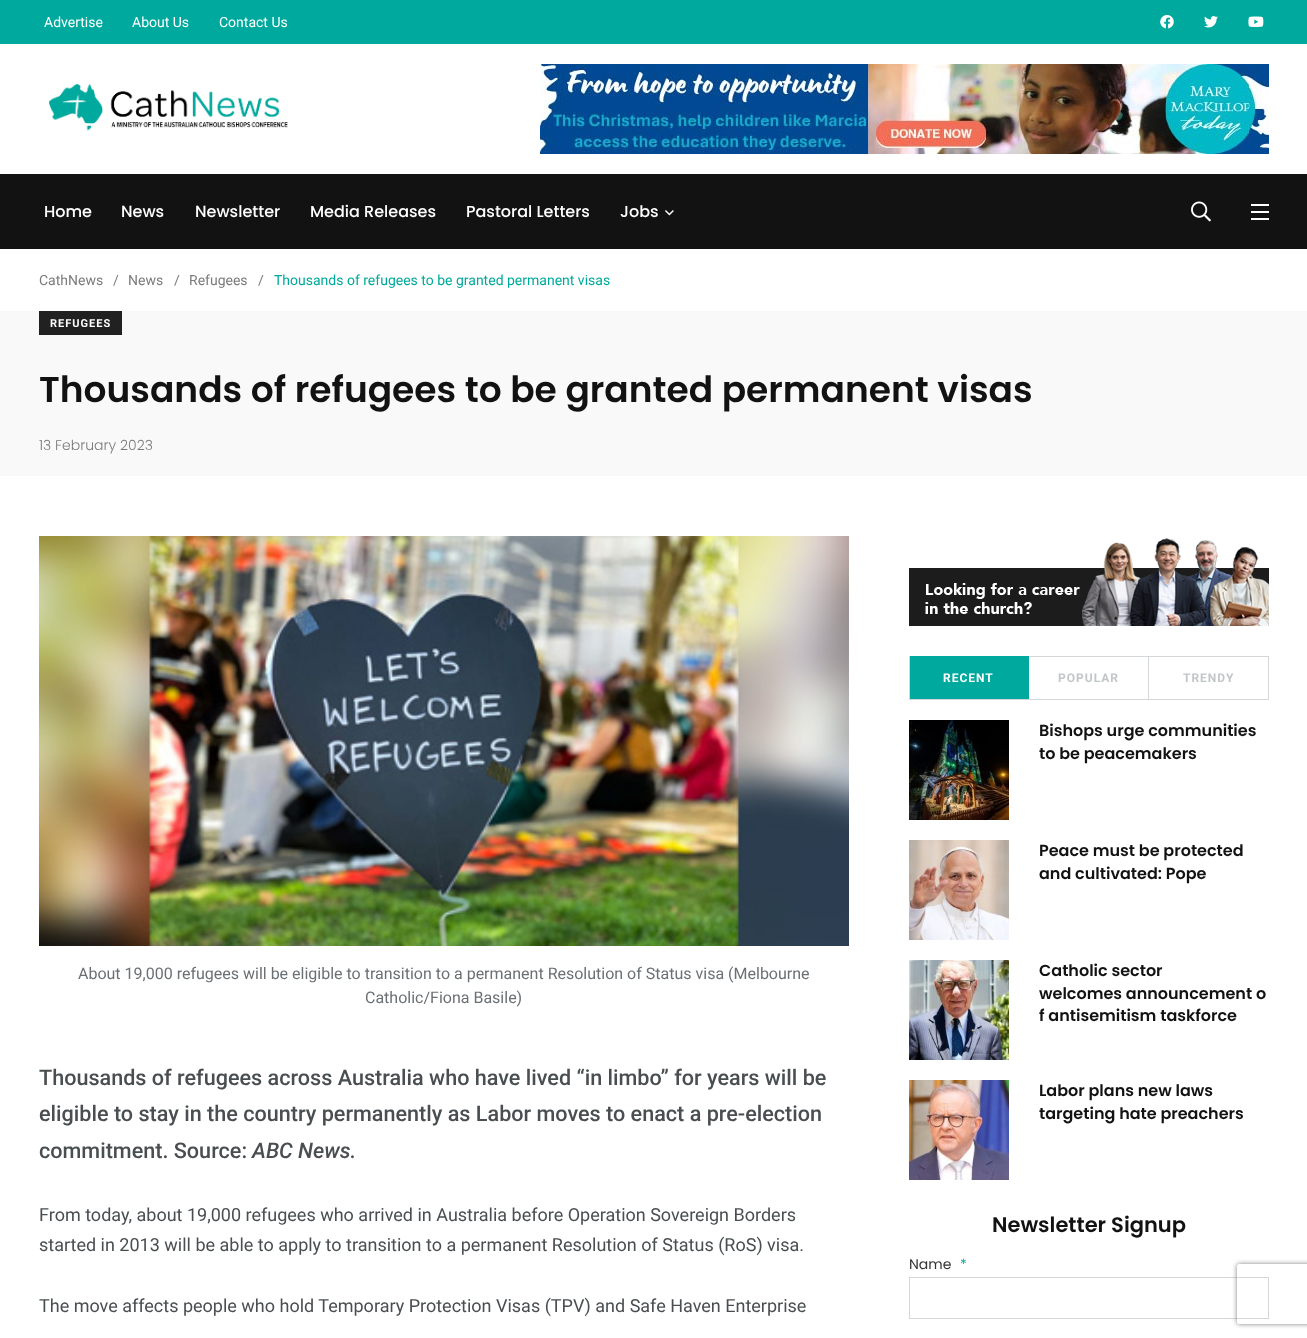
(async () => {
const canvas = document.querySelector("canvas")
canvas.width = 1307
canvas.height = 1338
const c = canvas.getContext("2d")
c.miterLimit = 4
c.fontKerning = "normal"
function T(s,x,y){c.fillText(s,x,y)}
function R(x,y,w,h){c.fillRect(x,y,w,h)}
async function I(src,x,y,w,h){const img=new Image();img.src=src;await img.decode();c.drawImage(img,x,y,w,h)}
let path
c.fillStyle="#fff"
R(0,0,1307,1338)
c.fillStyle="#00a99d"
R(0,0,1307,44)
c.font="14px Roboto"
c.fillStyle="#fff"
T("Advertise",44,27)
T("About Us",132,27)
T("Contact Us",219,27)
await I("1.png",1160,15,14,14)
await I("2.png",1204,16,14,12)
await I("3.png",1248,16,16,11)
await I("4.png",49,84,239,47)
await I("5.png",540,64,729,90)
c.fillStyle="#121213"
R(0,174,1307,75)
c.font="500 16px Poppins"
c.fillStyle="#fff"
T("Home",44,217)
T("News",121,217)
T("Newsletter",195,217)
T("Media Releases",310,217)
T("Pastoral Letters",466,217)
T("Jobs",620,217)
await I("6.png",665,210,9,6)
await I("7.png",1191,201,20,21)
R(1251,204,18,2)
R(1251,211,18,2)
R(1251,218,18,2)
c.font="14px Roboto"
c.fillStyle="#7b7b7b"
T("CathNews",39,285)
T("/",113,285)
T("News",128,285)
T("/",174,285)
T("Refugees",189,285)
T("/",258,285)
c.fillStyle="#00a99d"
T("Thousands of refugees to be granted permanent visas",274,285)
c.fillStyle="#f9f9f9"
R(0,311,1307,165)
c.fillStyle="#212121"
R(39,311,83,24)
c.letterSpacing="1px"
c.font="bold 11px Roboto"
c.fillStyle="#fff"
T("REFUGEES",50,327)
c.letterSpacing="0px"
c.font="600 36px Poppins"
c.fillStyle="#121213"
T("Thousands of refugees to be granted permanent visas",39,402)
c.font="300 14px Poppins"
c.fillStyle="#7b7b7b"
T("13 February 2023",39,450)
await I("8.png",39,536,810,410)
c.font="16px Roboto"
c.fillStyle="#6b7074"
T("About 19,000 refugees will be eligible to transition to a permanent Resolution of Status visa (Melbourne",78,979)
T("Catholic/Fiona Basile)",365,1003)
c.font="500 21.6px Roboto"
c.fillStyle="#494e51"
T("Thousands of refugees across Australia who have lived “in limbo” for years will be",39,1085)
T("eligible to stay in the country permanently as Labor moves to enact a pre-election",39,1121)
T("commitment. Source:",39,1158)
c.font="italic 500 21.6px Roboto"
T("ABC News.",252,1158)
c.font="18px Roboto"
T("From today, about 19,000 refugees who arrived in Australia before Operation Sovereign Borders",39,1221)
T("started in 2013 will be able to apply to transition to a permanent Resolution of Status (RoS) visa.",39,1251)
T("The move affects people who hold Temporary Protection Visas (TPV) and Safe Haven Enterprise",39,1312)
await I("9.png",909,538,360,88)
c.fillStyle="#d3d7da"
R(909,699,360,1)
R(909,656,1,44)
c.fillStyle="#00a99d"
R(910,657,118,42)
R(910,656,119,1)
R(1028,656,1,43)
c.letterSpacing="1px"
c.font="bold 12px Roboto"
c.fillStyle="#fff"
T("RECENT",943,682)
c.fillStyle="#d3d7da"
R(1029,656,240,1)
R(1148,656,1,43)
c.fillStyle="#c1c6c9"
T("POPULAR",1058,682)
c.fillStyle="#d3d7da"
R(1268,656,1,43)
c.fillStyle="#c1c6c9"
T("TRENDY",1183,682)
await I("10.png",909,720,100,100)
c.letterSpacing="0px"
c.font="600 16px Poppins"
c.fillStyle="#121213"
T("Bishops urge communities",1039,736)
T("to be peacemakers",1039,759)
await I("11.png",909,840,100,100)
T("Peace must be protected",1039,856)
T("and cultivated: Pope",1039,879)
await I("12.png",909,960,100,100)
T("Catholic sector",1039,976)
T("welcomes announcement o",1039,999)
T("f antisemitism taskforce",1039,1021)
await I("13.png",909,1080,100,100)
T("Labor plans new laws",1039,1096)
T("targeting hate preachers",1039,1119)
c.font="600 21px Poppins"
T("Newsletter Signup",992,1232)
c.font="14px Poppins"
c.fillStyle="#333"
T("Name",909,1269)
c.fillStyle="#00a99d"
T("*",960,1269)
c.strokeStyle="#d3d7da"
c.strokeRect(909.5,1277.5,359,41)
c.save()
path = new Path2D("M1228 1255h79v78h-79zm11 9h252c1 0 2 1 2 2v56c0 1-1 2-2 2h-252c-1 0-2-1-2-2v-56c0-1 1-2 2-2z")
c.clip(path,"evenodd")
c.fillStyle="#808080"
c.filter="blur(2.5px)"
c.beginPath()
c.roundRect(1237,1264,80,60,2)
c.fill()
c.filter="none"
c.restore()
})()
